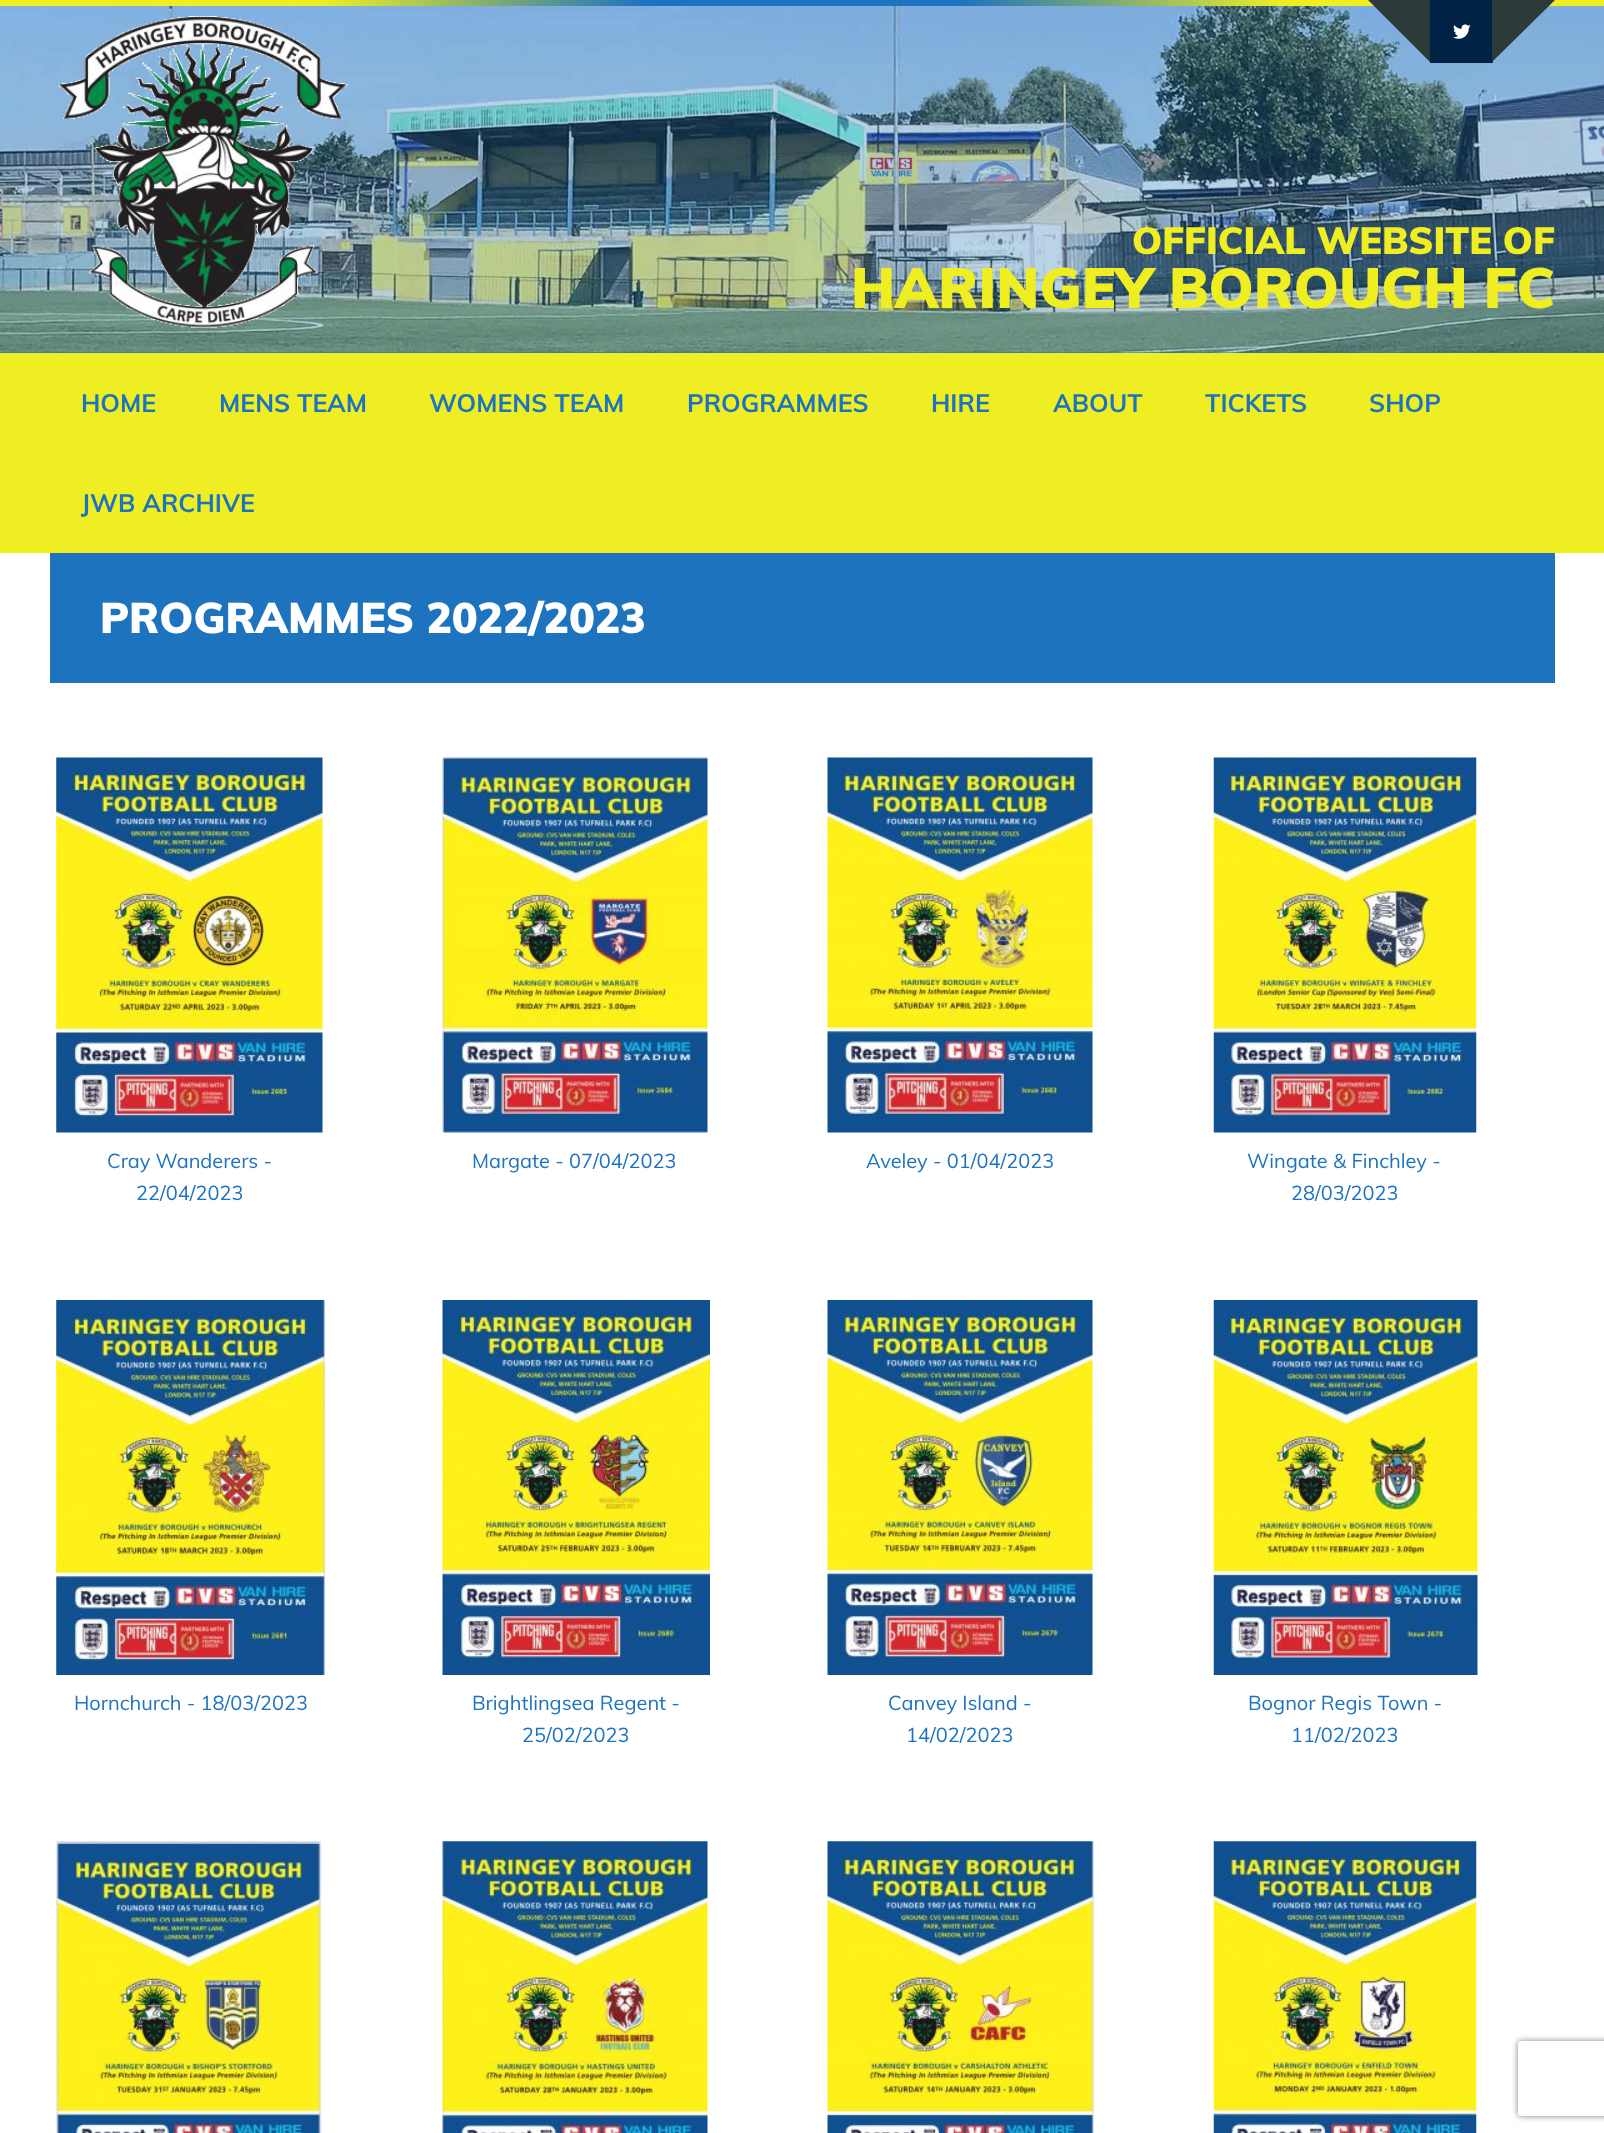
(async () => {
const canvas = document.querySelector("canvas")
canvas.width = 1604
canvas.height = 2133
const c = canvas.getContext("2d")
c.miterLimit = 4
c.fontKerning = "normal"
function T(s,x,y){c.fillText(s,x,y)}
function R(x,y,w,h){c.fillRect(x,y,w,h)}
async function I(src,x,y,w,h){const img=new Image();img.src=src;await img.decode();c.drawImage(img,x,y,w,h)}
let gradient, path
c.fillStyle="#fff"
R(0,0,1604,2133)
gradient = c.createLinearGradient(0,3.1,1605,3.1)
gradient.addColorStop(0,"#ee2")
gradient.addColorStop(.2,"#ee2")
gradient.addColorStop(.4,"#1e73be")
gradient.addColorStop(.6,"#1e73be")
gradient.addColorStop(.8,"#ee2")
gradient.addColorStop(1,"#ee2")
c.fillStyle = gradient
R(0,0,1604,6)
c.fillStyle="#1e73be"
R(0,352,1604,1)
await I("1.png",0,6,1604,347)
await I("2.png",58,16,290,312)
c.fillStyle="#002245"
R(1430,0,63,63)
c.fillStyle="#2d3a3a"
path = new Path2D("M1430 0v62l-62-62z")
c.fill(path)
await I("3.png",1453,24,18,15)
path = new Path2D("M1492 62v-62h63z")
c.fill(path)
c.font="900 37.5px Muli"
c.fillStyle="#ee2"
T("OFFICIAL WEBSITE OF",1132,254)
c.font="900 56.25px Muli"
T("HARINGEY BOROUGH FC",851,308)
R(0,353,1604,200)
c.font="bold 25px Muli"
c.fillStyle="#1e73be"
T("HOME",81,412)
T("MENS TEAM",219,412)
T("WOMENS TEAM",429,412)
T("PROGRAMMES",687,412)
T("HIRE",931,412)
T("ABOUT",1053,412)
T("TICKETS",1205,412)
T("SHOP",1369,412)
T("JWB ARCHIVE",81,512)
R(50,553,1505,130)
c.font="900 42.5px Muli"
c.fillStyle="#fff"
T("PROGRAMMES 2022/2023",100,633)
await I("4.png",56,757,267,376)
c.font="20px Muli"
c.fillStyle="#1e73be"
T("Cray Wanderers -",107,1168)
T("22/04/2023",136,1200)
await I("5.png",442,757,266,376)
T("Margate - 07/04/2023",472,1168)
await I("6.png",827,757,266,376)
T("Aveley - 01/04/2023",866,1168)
await I("7.png",1213,757,264,376)
T("Wingate & Finchley -",1247,1168)
T("28/03/2023",1291,1200)
await I("8.png",56,1300,269,375)
T("Hornchurch - 18/03/2023",74,1710)
await I("9.png",442,1300,268,375)
T("Brightlingsea Regent -",472,1710)
T("25/02/2023",522,1742)
await I("10.png",827,1300,266,375)
T("Canvey Island -",888,1710)
T("14/02/2023",906,1742)
await I("11.png",1213,1300,265,375)
T("Bognor Regis Town -",1248,1710)
T("11/02/2023",1291,1742)
await I("12.png",56,1841,266,292)
await I("13.png",442,1841,266,292)
await I("14.png",827,1841,267,292)
await I("15.png",1213,1841,264,292)
c.save()
path = new Path2D("M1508 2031h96v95h-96zm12.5 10h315c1.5 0 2.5 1 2.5 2.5v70c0 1.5-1 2.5-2.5 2.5h-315c-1.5 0-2.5-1-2.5-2.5v-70c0-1.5 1-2.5 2.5-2.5z")
c.clip(path,"evenodd")
c.fillStyle="#808080"
c.filter="blur(3px)"
c.beginPath()
c.roundRect(1518,2041,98,75,2.5)
c.fill()
c.filter="none"
c.restore()
})()
